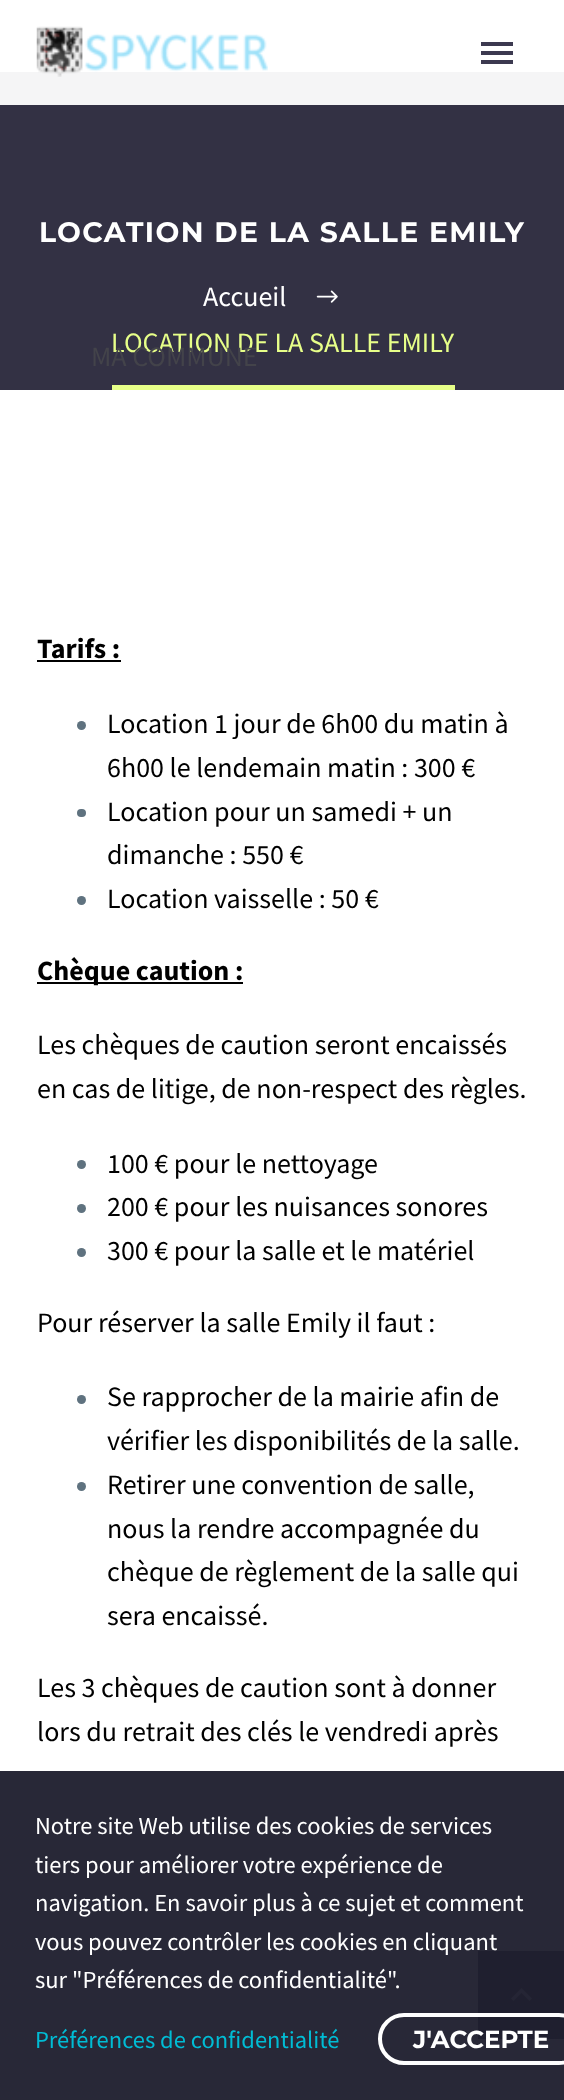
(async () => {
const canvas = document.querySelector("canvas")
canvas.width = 564
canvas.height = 2100
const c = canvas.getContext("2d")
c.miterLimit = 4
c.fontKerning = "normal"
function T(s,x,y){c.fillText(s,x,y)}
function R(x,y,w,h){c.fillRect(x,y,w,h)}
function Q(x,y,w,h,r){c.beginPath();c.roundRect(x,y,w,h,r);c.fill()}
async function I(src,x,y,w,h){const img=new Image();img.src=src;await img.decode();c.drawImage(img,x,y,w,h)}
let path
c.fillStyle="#fff"
R(0,0,564,2100)
c.fillStyle="#333144"
R(0,105,564,285)
c.fillStyle="#f5f5f6"
R(0,72,564,33)
c.letterSpacing="1.4px"
c.font="bold 28.25px Montserrat"
c.fillStyle="#fff"
T("LOCATION DE LA SALLE EMILY",39,242)
c.letterSpacing="0px"
c.font="28px Source Sans Pro"
T("Accueil",203,306)
await I("1.png",316,290,22,13)
c.fillStyle="#e7ff89"
R(112,385,343,5)
T("LOCATION DE LA SALLE EMILY",111,352)
c.font="bold 28px Source Sans Pro"
c.fillStyle="#000"
T("Tarifs :",37,658)
R(37,660,84,2)
c.fillStyle="#5f727f"
c.beginPath()
c.arc(81.5,725.5,4.5,0,7)
c.fill()
c.font="28px Source Sans Pro"
c.fillStyle="#000"
T("Location 1 jour de 6h00 du matin à",107,733)
T("6h00 le lendemain matin : 300 €",107,777)
c.fillStyle="#5f727f"
Q(77,809,9,8,4)
c.fillStyle="#000"
T("Location pour un samedi + un",107,821)
T("dimanche : 550 €",107,864)
c.fillStyle="#5f727f"
c.beginPath()
c.arc(81.5,900.5,4.5,0,7)
c.fill()
c.fillStyle="#000"
T("Location vaisselle : 50 €",107,908)
R(37,982,206,2)
c.font="bold 28px Source Sans Pro"
T("Chèque caution :",37,980)
c.font="28px Source Sans Pro"
T("Les chèques de caution seront encaissés",37,1054)
T("en cas de litige, de non-respect des règles.",37,1098)
c.fillStyle="#5f727f"
c.beginPath()
c.arc(81.5,1164.5,4.5,0,7)
c.fill()
c.fillStyle="#000"
T("100 € pour le nettoyage",107,1173)
c.fillStyle="#5f727f"
c.beginPath()
c.arc(81.5,1208.5,4.5,0,7)
c.fill()
c.fillStyle="#000"
T("200 € pour les nuisances sonores",107,1216)
c.fillStyle="#5f727f"
c.beginPath()
c.arc(81.5,1252.5,4.5,0,7)
c.fill()
c.fillStyle="#000"
T("300 € pour la salle et le matériel",107,1260)
T("Pour réserver la salle Emily il faut :",37,1332)
c.fillStyle="#5f727f"
c.beginPath()
c.arc(81.5,1399.5,4.5,0,7)
c.fill()
c.fillStyle="#000"
T("Se rapprocher de la mairie afin de",107,1406)
T("vérifier les disponibilités de la salle.",107,1450)
c.fillStyle="#5f727f"
c.beginPath()
c.arc(81.5,1486.5,4.5,0,7)
c.fill()
c.fillStyle="#000"
T("Retirer une convention de salle,",107,1494)
T("nous la rendre accompagnée du",107,1538)
T("chèque de règlement de la salle qui",107,1581)
T("sera encaissé.",107,1625)
T("Les 3 chèques de caution sont à donner",37,1697)
T("lors du retrait des clés le vendredi après",37,1741)
await I("2.png",36,26,232,51)
c.fillStyle="#3c3950"
R(481,42,32,4)
R(481,51,32,4)
R(481,60,32,4)
c.fillStyle="#43434a"
T("MA COMMUNE",91,366)
c.fillStyle="#06060f80"
R(478,1951,86,88)
c.fillStyle="#ccd4da"
path = new Path2D("M513.5 2001l8-8l8 8l2.5-2.5l-10.5-10.5l-10.5 10.5z")
c.fill(path)
c.fillStyle="#181828ed"
R(0,1771,564,329)
c.font="24.5px Source Sans Pro"
c.fillStyle="#fff"
T("Notre site Web utilise des cookies de services",35,1834)
T("tiers pour améliorer votre expérience de",35,1873)
T("navigation. En savoir plus à ce sujet et comment",35,1911)
T("vous pouvez contrôler les cookies en cliquant",35,1950)
T("sur \"Préférences de confidentialité\".",35,1988)
c.fillStyle="#00bcd4"
T("Préférences de confidentialité",35,2048)
c.beginPath()
c.roundRect(380,2015,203,48,24)
c.strokeStyle="#fff"
c.lineWidth=4
c.stroke()
c.font="bold 24.5px Montserrat"
c.fillStyle="#fff"
T("J'ACCEPTE",413,2048)
})()
